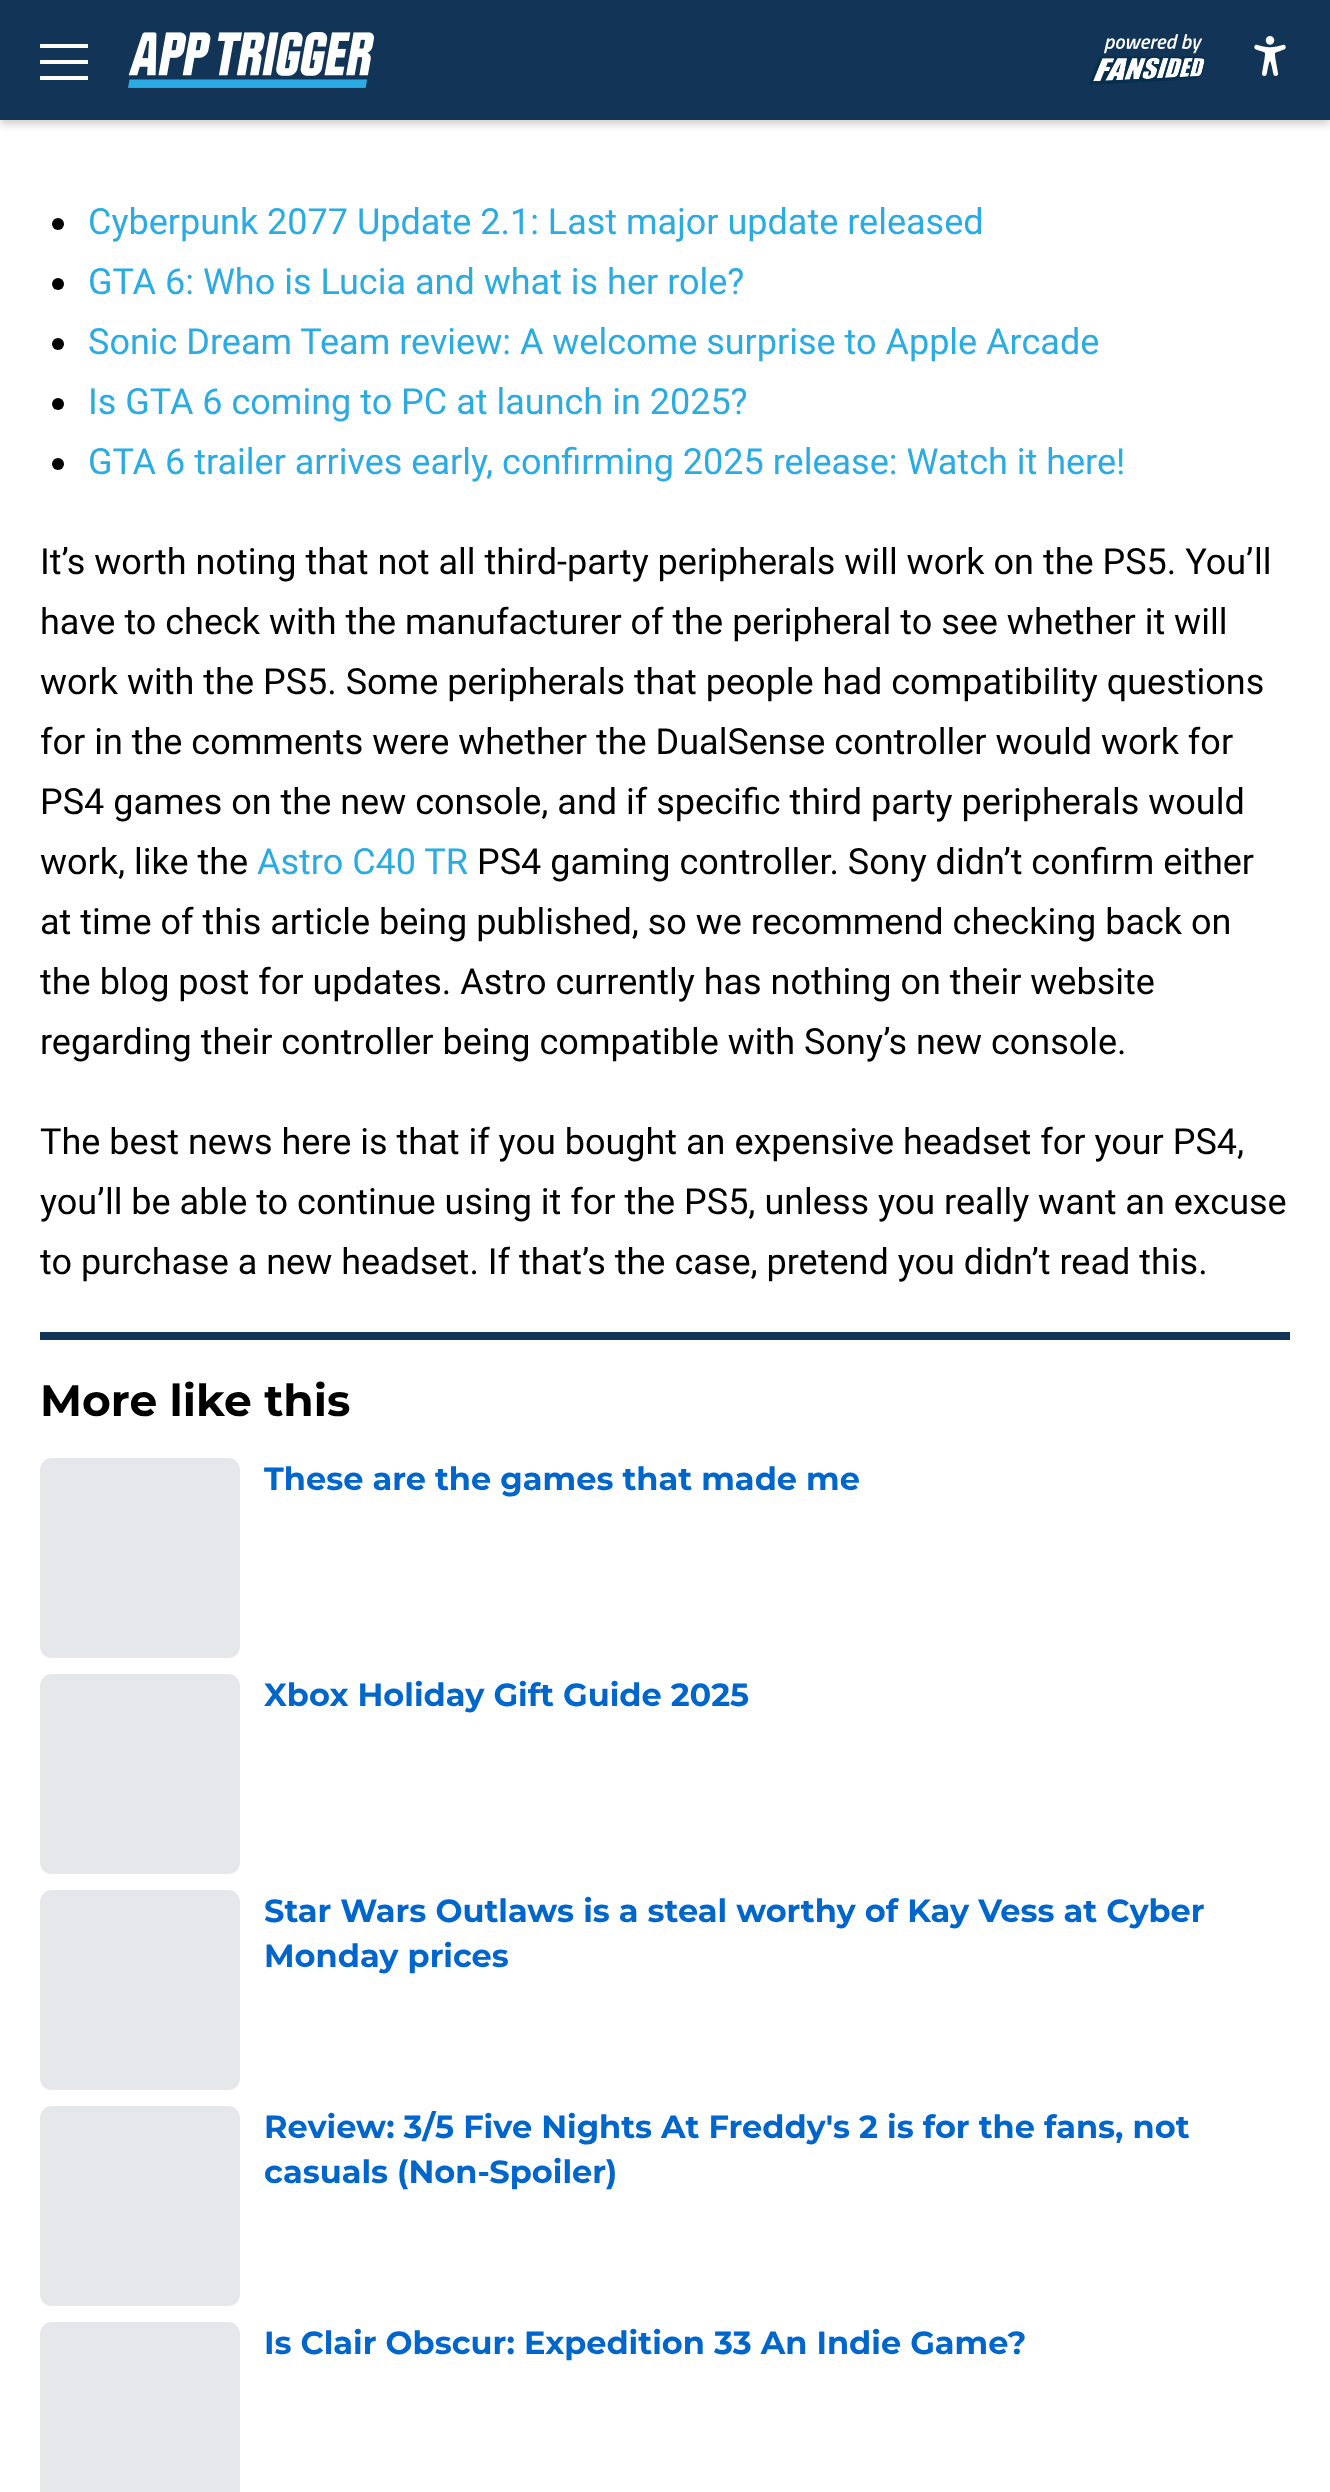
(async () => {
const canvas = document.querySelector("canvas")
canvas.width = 1330
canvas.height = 2492
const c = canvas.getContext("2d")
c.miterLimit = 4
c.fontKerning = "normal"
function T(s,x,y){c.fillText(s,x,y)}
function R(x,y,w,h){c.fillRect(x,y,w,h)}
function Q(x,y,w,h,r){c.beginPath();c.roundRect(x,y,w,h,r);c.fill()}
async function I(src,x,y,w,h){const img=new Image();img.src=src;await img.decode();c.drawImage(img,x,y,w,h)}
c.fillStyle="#fff"
R(0,0,1330,2492)
c.fillStyle="#00000033"
c.filter="blur(4px)"
c.beginPath()
c.rect(0,4,1330,120)
c.fill()
c.filter="none"
c.fillStyle="#113457"
R(0,0,1330,120)
c.fillStyle="#fff"
R(40,44,48,4)
R(40,60,48,4)
R(40,76,48,4)
await I("1.png",128,32,246,56)
await I("2.png",1088,34,118,51)
await I("3.png",1254,36,32,40)
c.fillStyle="#000"
c.beginPath()
c.arc(58,224,6,0,7)
c.fill()
c.font="36px Roboto"
c.fillStyle="#2aabe2"
T("Cyberpunk 2077 Update 2.1: Last major update released",88,234)
c.fillStyle="#000"
c.beginPath()
c.arc(58,284,6,0,7)
c.fill()
c.fillStyle="#2aabe2"
T("GTA 6: Who is Lucia and what is her role?",88,294)
c.fillStyle="#000"
c.beginPath()
c.arc(58,344,6,0,7)
c.fill()
c.fillStyle="#2aabe2"
T("Sonic Dream Team review: A welcome surprise to Apple Arcade",88,354)
c.fillStyle="#000"
c.beginPath()
c.arc(58,404,6,0,7)
c.fill()
c.fillStyle="#2aabe2"
T("Is GTA 6 coming to PC at launch in 2025?",88,414)
c.fillStyle="#000"
c.beginPath()
c.arc(58,464,6,0,7)
c.fill()
c.fillStyle="#2aabe2"
T("GTA 6 trailer arrives early, confirming 2025 release: Watch it here!",88,474)
c.fillStyle="#000"
T("It’s worth noting that not all third-party peripherals will work on the PS5. You’ll",40,574)
T("have to check with the manufacturer of the peripheral to see whether it will",40,634)
T("work with the PS5. Some peripherals that people had compatibility questions",40,694)
T("for in the comments were whether the DualSense controller would work for",40,754)
T("PS4 games on the new console, and if specific third party peripherals would",40,814)
T("work, like the",40,874)
c.fillStyle="#2aabe2"
T("Astro C40 TR",257,874)
c.fillStyle="#000"
T("PS4 gaming controller. Sony didn’t confirm either",477,874)
T("at time of this article being published, so we recommend checking back on",40,934)
T("the blog post for updates. Astro currently has nothing on their website",40,994)
T("regarding their controller being compatible with Sony’s new console.",40,1054)
T("The best news here is that if you bought an expensive headset for your PS4,",40,1154)
T("you’ll be able to continue using it for the PS5, unless you really want an excuse",40,1214)
T("to purchase a new headset. If that’s the case, pretend you didn’t read this.",40,1274)
c.fillStyle="#113457"
R(40,1332,1250,8)
c.font="100 44px Montserrat"
c.fillStyle="#000"
T("More like this",40,1416)
c.fillStyle="#e5e7eb"
Q(40,1458,200,200,12)
c.font="100 32px Montserrat"
c.fillStyle="#06c"
T("These are the games that made me",264,1490)
c.fillStyle="#e5e7eb"
Q(40,1674,200,200,12)
c.fillStyle="#06c"
T("Xbox Holiday Gift Guide 2025",264,1706)
c.fillStyle="#e5e7eb"
Q(40,1890,200,200,12)
c.fillStyle="#06c"
T("Star Wars Outlaws is a steal worthy of Kay Vess at Cyber",264,1922)
T("Monday prices",264,1967)
c.fillStyle="#e5e7eb"
Q(40,2106,200,200,12)
c.fillStyle="#06c"
T("Review: 3/5 Five Nights At Freddy's 2 is for the fans, not",264,2138)
T("casuals (Non-Spoiler)",264,2183)
c.fillStyle="#e5e7eb"
Q(40,2322,200,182,12)
c.fillStyle="#06c"
T("Is Clair Obscur: Expedition 33 An Indie Game?",264,2354)
})()
